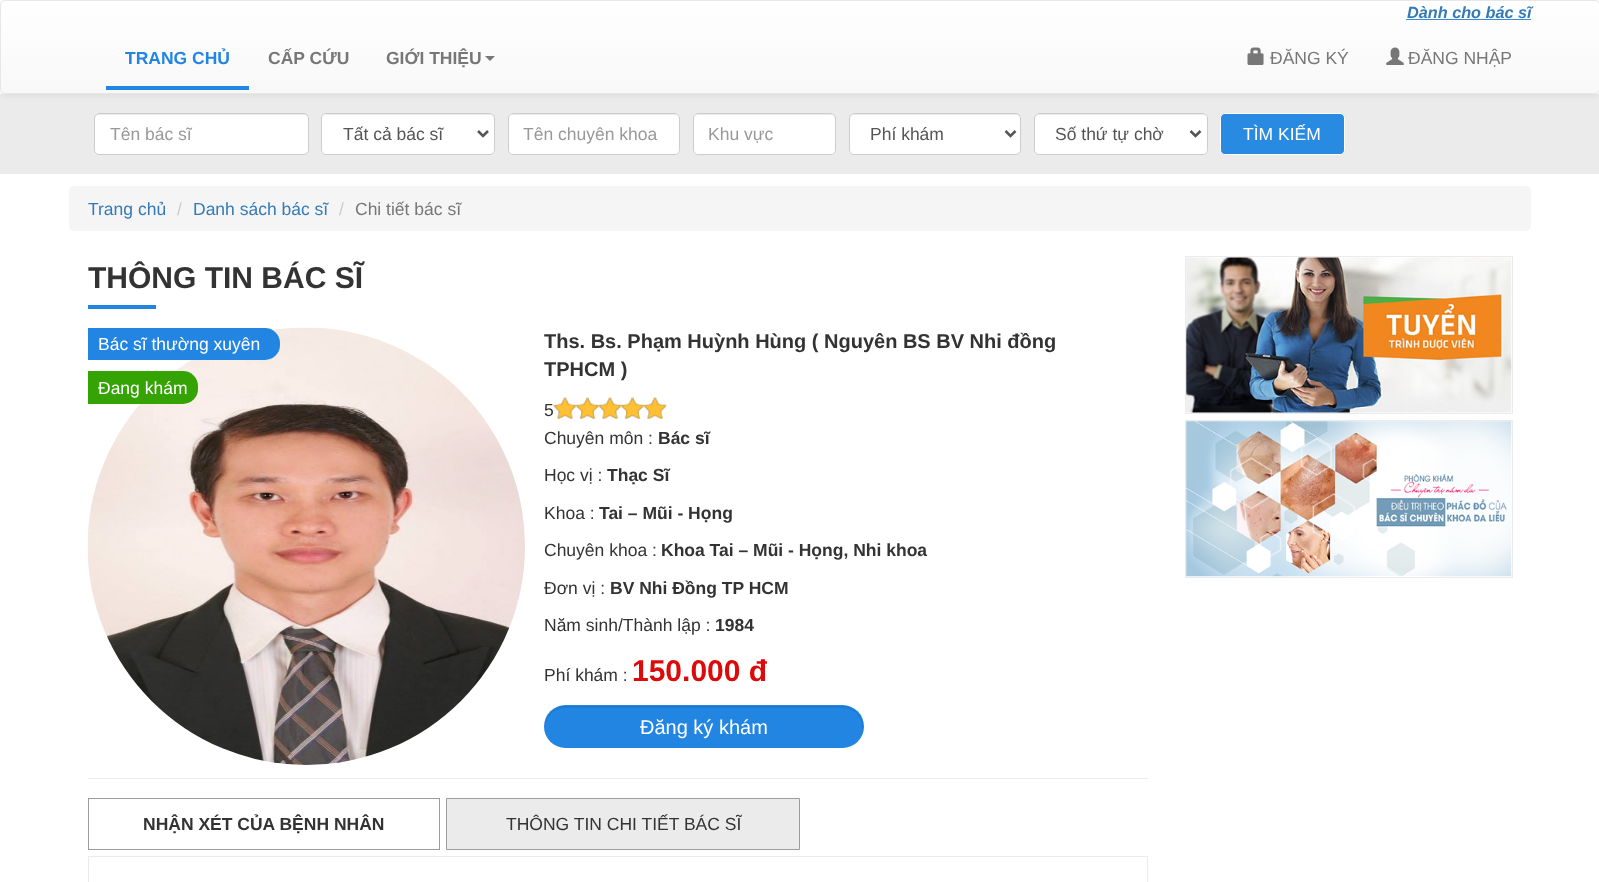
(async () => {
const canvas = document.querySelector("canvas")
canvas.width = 1599
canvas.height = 882
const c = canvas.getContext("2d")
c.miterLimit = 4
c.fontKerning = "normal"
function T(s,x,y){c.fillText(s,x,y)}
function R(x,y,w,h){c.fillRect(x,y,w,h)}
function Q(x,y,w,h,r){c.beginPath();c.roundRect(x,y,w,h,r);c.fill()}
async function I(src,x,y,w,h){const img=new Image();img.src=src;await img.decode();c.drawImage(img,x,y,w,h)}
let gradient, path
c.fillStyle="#fff"
R(0,0,1599,882)
c.fillStyle="#ebebeb"
R(0,94,1599,80)
c.fillStyle="#00000012"
c.filter="blur(3px)"
c.beginPath()
c.roundRect(0,1,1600,94,5)
c.fill()
c.filter="none"
c.save()
c.beginPath()
c.roundRect(0,0,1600,94,5)
c.clip()
gradient = c.createLinearGradient(800,1.2,800,93)
gradient.addColorStop(0,"#fff")
gradient.addColorStop(1,"#f8f8f8")
c.fillStyle = gradient
R(0,1,1599,92)
c.restore()
c.beginPath()
c.roundRect(.5,.5,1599,93,4.5)
c.strokeStyle="#e7e7e7"
c.stroke()
c.fillStyle="#2285e2"
R(106,86,143,4)
c.font="bold 17.5px Liberation Sans"
T("TRANG CHỦ",125,64)
c.fillStyle="#777"
T("CẤP CỨU",268,64)
T("GIỚI THIỆU",386,64)
path = new Path2D("M485 56h10l-5 5z")
c.fill(path)
c.font="italic bold 16.25px Liberation Sans"
c.fillStyle="#337ab7"
T("Dành cho bác sĩ",1407,18)
c.fillStyle="#358ae1"
R(1406,19,125,1)
await I("1.png",1247,47,17,18)
c.font="17.5px Liberation Sans"
c.fillStyle="#777"
T("ĐĂNG KÝ",1270,64)
await I("2.png",1386,47,18,18)
T("ĐĂNG NHẬP",1408,64)
c.fillStyle="#fff"
Q(94,113,215,42,5)
c.fillStyle="#ececec"
path = new Path2D("M99 115h205c2 0 4 2 4 4v-1c0-2-2-4-4-4h-205c-2 0-4 2-4 4v1c0-2 2-4 4-4z")
c.fill(path)
c.beginPath()
c.roundRect(94.5,113.5,214,41,4.5)
c.strokeStyle="#ccc"
c.stroke()
c.fillStyle="#999"
T("Tên bác sĩ",110,140)
c.fillStyle="#fff"
Q(321,113,174,42,5)
c.fillStyle="#ececec"
path = new Path2D("M326 115h164c2 0 4 2 4 4v-1c0-2-2-4-4-4h-163c-1 0-3 1-3 2z")
c.fill(path)
c.beginPath()
c.roundRect(321.5,113.5,173,41,4.5)
c.stroke()
path = new Path2D("M478 131l5 5l5-5")
c.strokeStyle="#555"
c.lineWidth=2.5
c.stroke(path)
c.fillStyle="#555"
T("Tất cả bác sĩ",343,140)
c.fillStyle="#fff"
Q(508,113,172,42,5)
c.fillStyle="#ececec"
path = new Path2D("M512 115h163c2 0 4 2 4 4v-1c0-2-2-4-4-4h-162c-2 0-4 2-4 4v1c0-2 1-4 3-4z")
c.fill(path)
c.beginPath()
c.roundRect(508.5,113.5,171,41,4.5)
c.strokeStyle="#ccc"
c.lineWidth=1
c.stroke()
c.fillStyle="#999"
T("Tên chuyên khoa",523,140)
c.fillStyle="#fff"
Q(693,113,143,42,5)
c.fillStyle="#ececec"
path = new Path2D("M698 115h133c2 0 4 2 4 4v-1c0-2-2-4-4-4h-133c-2 0-4 2-4 4v1c0-2 1-4 4-4z")
c.fill(path)
c.beginPath()
c.roundRect(693.5,113.5,142,41,4.5)
c.stroke()
c.fillStyle="#999"
T("Khu vực",708,140)
c.fillStyle="#fff"
Q(849,113,172,42,5)
c.fillStyle="#ececec"
path = new Path2D("M854 115h162c2 0 4 2 4 4v-1c0-2-2-4-4-4h-162c-2 0-4 2-4 4v1c0-2 2-4 4-4z")
c.fill(path)
c.beginPath()
c.roundRect(849.5,113.5,171,41,4.5)
c.stroke()
path = new Path2D("M1005.5 131l5 5l5-5")
c.strokeStyle="#555"
c.lineWidth=2.5
c.stroke(path)
c.fillStyle="#555"
T("Phí khám",870,140)
c.fillStyle="#fff"
Q(1034,113,174,42,5)
c.fillStyle="#ececec"
path = new Path2D("M1039 115h163c3 0 4 2 4 4v-1c0-2-2-4-4-4h-163c-2 0-4 2-4 4v1c0-2 2-4 4-4z")
c.fill(path)
c.beginPath()
c.roundRect(1034.5,113.5,173,41,4.5)
c.strokeStyle="#ccc"
c.lineWidth=1
c.stroke()
path = new Path2D("M1190.5 131l5 5l5-5")
c.strokeStyle="#555"
c.lineWidth=2.5
c.stroke(path)
c.fillStyle="#555"
T("Số thứ tự chờ",1055,140)
c.fillStyle="#298ae2"
c.beginPath()
c.roundRect(1220.5,113.5,124,41,4.5)
c.fill()
c.strokeStyle="#fff"
c.lineWidth=1
c.stroke()
c.fillStyle="#fff"
T("TÌM KIẾM",1243,140)
c.fillStyle="#f5f5f5"
Q(69,186,1462,45,5)
c.fillStyle="#337ab7"
T("Trang chủ",88,215)
c.fillStyle="#ccc"
T("/",177,215)
c.fillStyle="#337ab7"
T("Danh sách bác sĩ",193,215)
c.fillStyle="#ccc"
T("/",339,215)
c.fillStyle="#777"
T("Chi tiết bác sĩ",355,215)
c.fillStyle="#ebebeb"
R(88,778,1060,1)
c.font="bold 30px Liberation Sans"
c.fillStyle="#333"
T("THÔNG TIN BÁC SĨ",88,288)
c.fillStyle="#2285e2"
R(88,305,68,4)
await I("3.png",87,327,438,438)
c.beginPath()
c.roundRect(88,328,192,32,[0,15,15,0])
c.fill()
c.font="17.5px Liberation Sans"
c.fillStyle="#fff"
T("Bác sĩ thường xuyên",98,350)
c.fillStyle="#35a303"
c.beginPath()
c.roundRect(88,371,110,33,[0,15,15,0])
c.fill()
c.fillStyle="#fff"
T("Đang khám",98,394)
c.font="bold 20px Liberation Sans"
c.fillStyle="#333"
T("Ths. Bs. Phạm Huỳnh Hùng ( Nguyên BS BV Nhi đồng",544,348)
T("TPHCM )",544,376)
c.font="17.5px Liberation Sans"
T("5",544,416)
await I("4.png",553,397,114,22)
await I("5.png",553,397,114,22)
T("Chuyên môn :",544,444)
c.font="bold 17.5px Liberation Sans"
T("Bác sĩ",658,444)
c.font="17.5px Liberation Sans"
T("Học vị :",544,481)
c.font="bold 17.5px Liberation Sans"
T("Thạc Sĩ",607,481)
c.font="17.5px Liberation Sans"
T("Khoa :",544,519)
c.font="bold 17.5px Liberation Sans"
T("Tai – Mũi - Họng",599,519)
c.font="17.5px Liberation Sans"
T("Chuyên khoa :",544,556)
c.font="bold 17.5px Liberation Sans"
T("Khoa Tai – Mũi - Họng, Nhi khoa",661,556)
c.font="17.5px Liberation Sans"
T("Đơn vị :",544,594)
c.font="bold 17.5px Liberation Sans"
T("BV Nhi Đồng TP HCM",610,594)
c.font="17.5px Liberation Sans"
T("Năm sinh/Thành lập :",544,631)
c.font="bold 17.5px Liberation Sans"
T("1984",715,631)
c.font="17.5px Liberation Sans"
T("Phí khám :",544,681)
c.font="bold 30px Liberation Sans"
c.fillStyle="#dc0a0a"
T("150.000 đ",632,681)
c.fillStyle="#2285e2"
Q(544,705,320,43,21.5)
c.fillStyle="#1f7bd1"
path = new Path2D("M565 708h277c12 0 20 8 20 20c0 3 0 5-1 7c1-3 2-6 2-9c0-11-9-20-20-20h-278c-11 0-20 9-20 20v1c1-11 9-19 20-19z")
c.fill(path)
c.font="20px Liberation Sans"
c.fillStyle="#fff"
T("Đăng ký khám",640,734)
c.strokeStyle="#9c9c9c"
c.strokeRect(88.5,798.5,351,51)
c.font="bold 17.5px Liberation Sans"
c.fillStyle="#333"
T("NHẬN XÉT CỦA BỆNH NHÂN",143,830)
c.fillStyle="#ebebeb"
c.beginPath()
c.rect(446.5,798.5,353,51)
c.fill()
c.stroke()
c.font="17.5px Liberation Sans"
c.fillStyle="#333"
T("THÔNG TIN CHI TIẾT BÁC SĨ",506,830)
c.strokeStyle="#ebebeb"
c.strokeRect(88.5,856.5,1059,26)
c.strokeRect(1185.5,256.5,327,157)
await I("6.png",1186,257,326,156)
c.strokeRect(1185.5,420.5,327,157)
await I("7.png",1186,421,326,156)
})()
